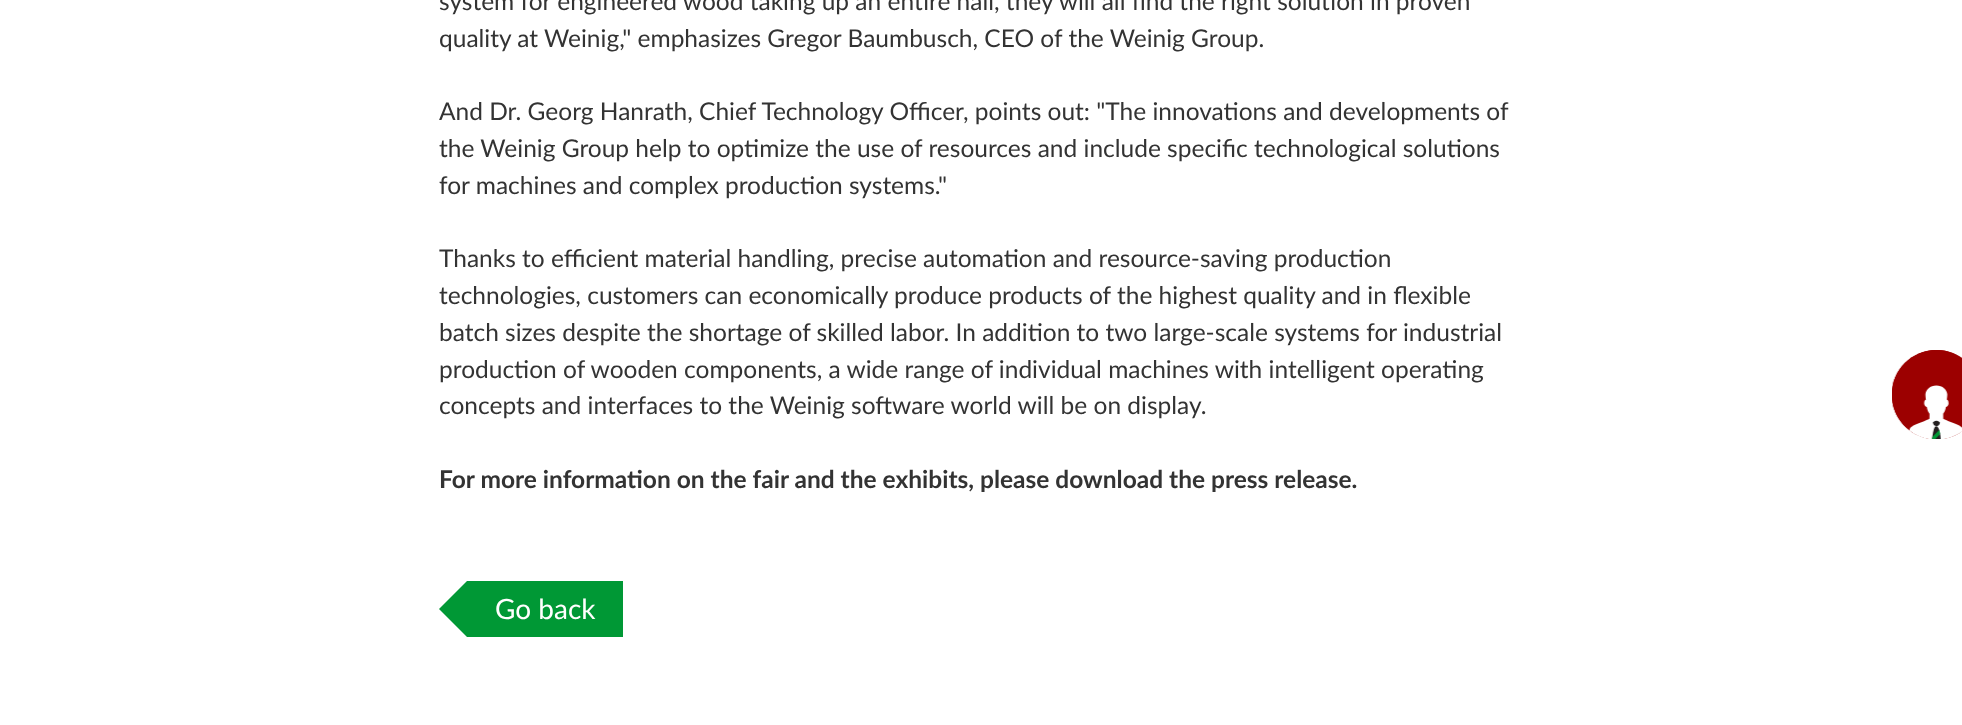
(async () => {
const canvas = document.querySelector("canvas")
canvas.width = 1962
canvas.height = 725
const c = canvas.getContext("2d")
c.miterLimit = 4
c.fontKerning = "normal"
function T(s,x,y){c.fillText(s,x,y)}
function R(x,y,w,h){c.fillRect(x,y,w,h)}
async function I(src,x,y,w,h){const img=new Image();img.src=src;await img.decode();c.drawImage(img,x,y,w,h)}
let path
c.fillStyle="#fff"
R(0,0,1962,725)
c.font="24.5px Lato"
c.fillStyle="#333"
T("system for engineered wood taking up an entire hall, they will all find the right solution in proven",439,10)
T("quality at Weinig,\" emphasizes Gregor Baumbusch, CEO of the Weinig Group.",439,47)
T("And Dr. Georg Hanrath, Chief Technology Officer, points out: \"The innovations and developments of",439,120)
T("the Weinig Group help to optimize the use of resources and include specific technological solutions",439,157)
T("for machines and complex production systems.\"",439,194)
T("Thanks to efficient material handling, precise automation and resource-saving production",439,267)
T("technologies, customers can economically produce products of the highest quality and in flexible",439,304)
T("batch sizes despite the shortage of skilled labor. In addition to two large-scale systems for industrial",439,341)
T("production of wooden components, a wide range of individual machines with intelligent operating",439,378)
T("concepts and interfaces to the Weinig software world will be on display.",439,414)
c.font="bold 24.5px Lato"
T("For more information on the fair and the exhibits, please download the press release.",439,488)
c.fillStyle="#009835"
R(467,581,156,56)
path = new Path2D("M467 581v56l-28-28z")
c.fill(path)
c.font="28px Lato"
c.fillStyle="#fff"
T("Go back",495,619)
await I("1.png",1892,350,70,89)
})()
